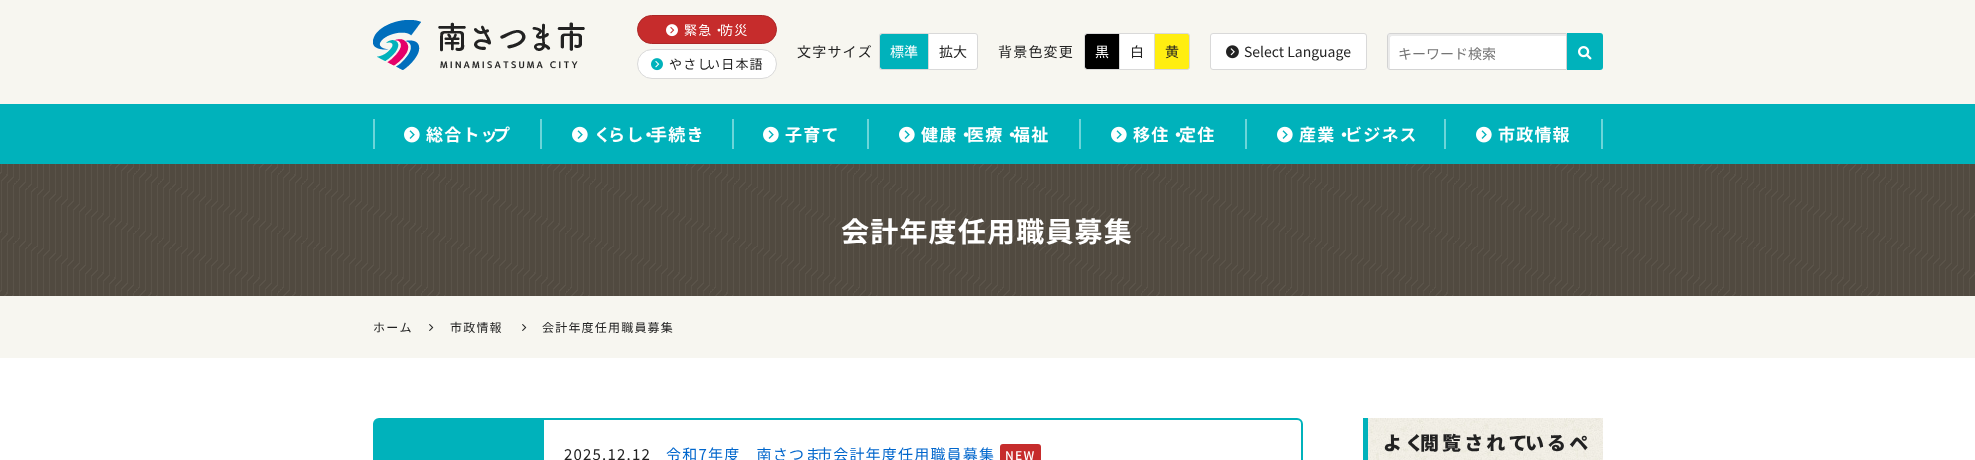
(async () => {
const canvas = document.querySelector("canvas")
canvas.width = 1975
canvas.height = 460
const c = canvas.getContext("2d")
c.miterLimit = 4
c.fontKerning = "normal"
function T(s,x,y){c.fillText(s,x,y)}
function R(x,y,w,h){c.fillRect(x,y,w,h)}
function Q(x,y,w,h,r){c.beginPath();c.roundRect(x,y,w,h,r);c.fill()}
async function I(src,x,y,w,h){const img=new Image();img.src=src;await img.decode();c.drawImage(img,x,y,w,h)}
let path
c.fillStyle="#fff"
R(0,0,1975,460)
c.fillStyle="#f7f6f0"
R(0,0,1975,104)
await I("1.png",373,20,212,50)
c.fillStyle="#c62c2c"
c.beginPath()
c.roundRect(637.5,15.5,139,28,14)
c.fill()
c.strokeStyle="#ac2727"
c.stroke()
await I("2.png",666,24,12,13)
c.letterSpacing="1.2px"
c.font="13px Noto Sans JP"
c.fillStyle="#fff"
T("緊急・",684,35)
T("防災",720,35)
c.beginPath()
c.roundRect(637.5,49.5,139,29,14.5)
c.fill()
c.strokeStyle="#d9d9d9"
c.stroke()
await I("3.png",651,58,12,13)
c.fillStyle="#222"
T("やさし",669,69)
T("い日本語",707,69)
c.font="14px Noto Sans JP"
T("文字サイズ",797,57)
c.fillStyle="#00b2bb"
c.beginPath()
c.roundRect(880,34,48,35,[2,0,0,2])
c.fill()
c.fillStyle="#d9d9d9"
path = new Path2D("M882 33h46v37h-46c-2 0-3-1-3-3v-31c0-2 1-3 3-3zm0 1h46v35h-46c-1 0-2-1-2-2v-31c0-1 1-2 2-2z")
c.fill(path,"evenodd")
c.letterSpacing="0px"
c.fillStyle="#fff"
T("標準",890,57)
c.beginPath()
c.roundRect(928.5,33.5,49,36,[0,2.5,2.5,0])
c.fill()
c.stroke()
c.fillStyle="#222"
T("拡大",939,57)
c.letterSpacing="1.2px"
T("背景色変更",998,57)
c.fillStyle="#000"
c.beginPath()
c.roundRect(1085,34,34,35,[2,0,0,2])
c.fill()
c.fillStyle="#d9d9d9"
path = new Path2D("M1087 33h32v37h-32c-1.5 0-3-1.5-3-3v-31c0-1.5 1.5-3 3-3zm0 1h32v35h-32c-1 0-2-1-2-2v-31c0-1 1-2 2-2z")
c.fill(path,"evenodd")
c.letterSpacing="0px"
c.fillStyle="#fff"
T("黒",1095,57)
R(1120,34,34,35)
c.fillStyle="#d9d9d9"
R(1119,33,35,1)
R(1119,69,35,1)
R(1119,33,1,37)
c.fillStyle="#222"
T("白",1130,57)
c.fillStyle="#fe1"
c.beginPath()
c.roundRect(1154.5,33.5,35,36,[0,2.5,2.5,0])
c.fill()
c.stroke()
c.fillStyle="#222"
T("黄",1165,57)
c.fillStyle="#fff"
c.beginPath()
c.roundRect(1210.5,33.5,156,36,2.5)
c.fill()
c.stroke()
await I("4.png",1226,45,13,14)
c.fillStyle="#222"
T("Select Language",1244,57)
c.fillStyle="#fff"
c.beginPath()
c.roundRect(1387,33,180,37,[3,0,0,3])
c.fill()
c.fillStyle="#ebebeb"
path = new Path2D("M1392 36h174v-2h-176c-1 0-2 1-2 2v31c0 1 1 2 2 2v-31c0-1 1-2 2-2z")
c.fill(path)
c.beginPath()
c.roundRect(1387.5,33.5,179,36,[2.5,0,0,2.5])
c.strokeStyle="#d3d3d3"
c.stroke()
c.fillStyle="#757575"
T("キーワード検索",1398,59)
c.fillStyle="#00b2bb"
c.beginPath()
c.roundRect(1567,33,36,37,[0,3,3,0])
c.fill()
await I("5.png",1578,46,14,14)
R(0,104,1975,60)
c.fillStyle="#6cd5d9"
R(373,119,2,30)
R(540,119,2,30)
await I("6.png",404,126,16,17)
c.letterSpacing="1.2px"
c.font="bold 17px Noto Sans JP"
c.fillStyle="#fff"
T("総合トッ",426,141)
T("プ",493,141)
c.fillStyle="#6cd5d9"
R(732,119,2,30)
await I("6.png",572,126,16,17)
c.fillStyle="#fff"
T("く",594,141)
T("らし",608,141)
T("・",640,141)
T("手続き",650,141)
c.fillStyle="#6cd5d9"
R(867,119,2,30)
await I("6.png",763,126,16,17)
c.fillStyle="#fff"
T("子育て",785,141)
c.fillStyle="#6cd5d9"
R(1079,119,2,30)
await I("6.png",899,126,16,17)
c.fillStyle="#fff"
T("健康・",921,141)
T("医療・",967,141)
T("福祉",1013,141)
c.fillStyle="#6cd5d9"
R(1245,119,2,30)
await I("6.png",1111,126,16,17)
c.fillStyle="#fff"
T("移住・",1133,141)
T("定住",1179,141)
c.fillStyle="#6cd5d9"
R(1444,119,2,30)
await I("6.png",1277,126,16,17)
c.fillStyle="#fff"
T("産業・",1299,141)
T("ビジネス",1345,141)
c.fillStyle="#6cd5d9"
R(1601,119,2,30)
await I("6.png",1476,126,16,17)
c.fillStyle="#fff"
T("市政情報",1498,141)
await I("7.png",0,164,1975,132)
c.font="bold 28px Noto Sans JP"
T("会計年度任用職員募集",841,242)
c.fillStyle="#f7f6f0"
R(0,296,1975,62)
c.font="12px Noto Sans JP"
c.fillStyle="#222"
T("ホーム",373,332)
await I("8.png",429,324,5,7)
T("市政情報",450,332)
await I("8.png",522,324,5,7)
T("会計年度任用職員募集",542,332)
await I("9.png",1368,418,235,42)
c.fillStyle="#00b2bb"
R(1363,418,5,42)
c.letterSpacing="3.1px"
c.font="900 19px Noto Sans JP"
c.fillStyle="#222"
T("よく",1383,450)
T("閲覧されて",1420,450)
T("いるペ",1525,450)
c.beginPath()
c.roundRect(374,419,928,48,5)
c.strokeStyle="#00b2bb"
c.lineWidth=2
c.stroke()
c.fillStyle="#00b2bb"
R(375,420,169,40)
c.letterSpacing="1.2px"
c.font="15px Noto Sans JP"
c.fillStyle="#222"
T("2025.12.12",564,460)
c.fillStyle="#06c"
T("令和7年度　南さつま",666,460)
T("市会計年度任用職員募集",817,460)
c.fillStyle="#c62c2c"
Q(1000,444,41,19,3)
c.font="500 12px Noto Sans JP"
c.fillStyle="#fff"
T("NEW",1005,460)
})()
